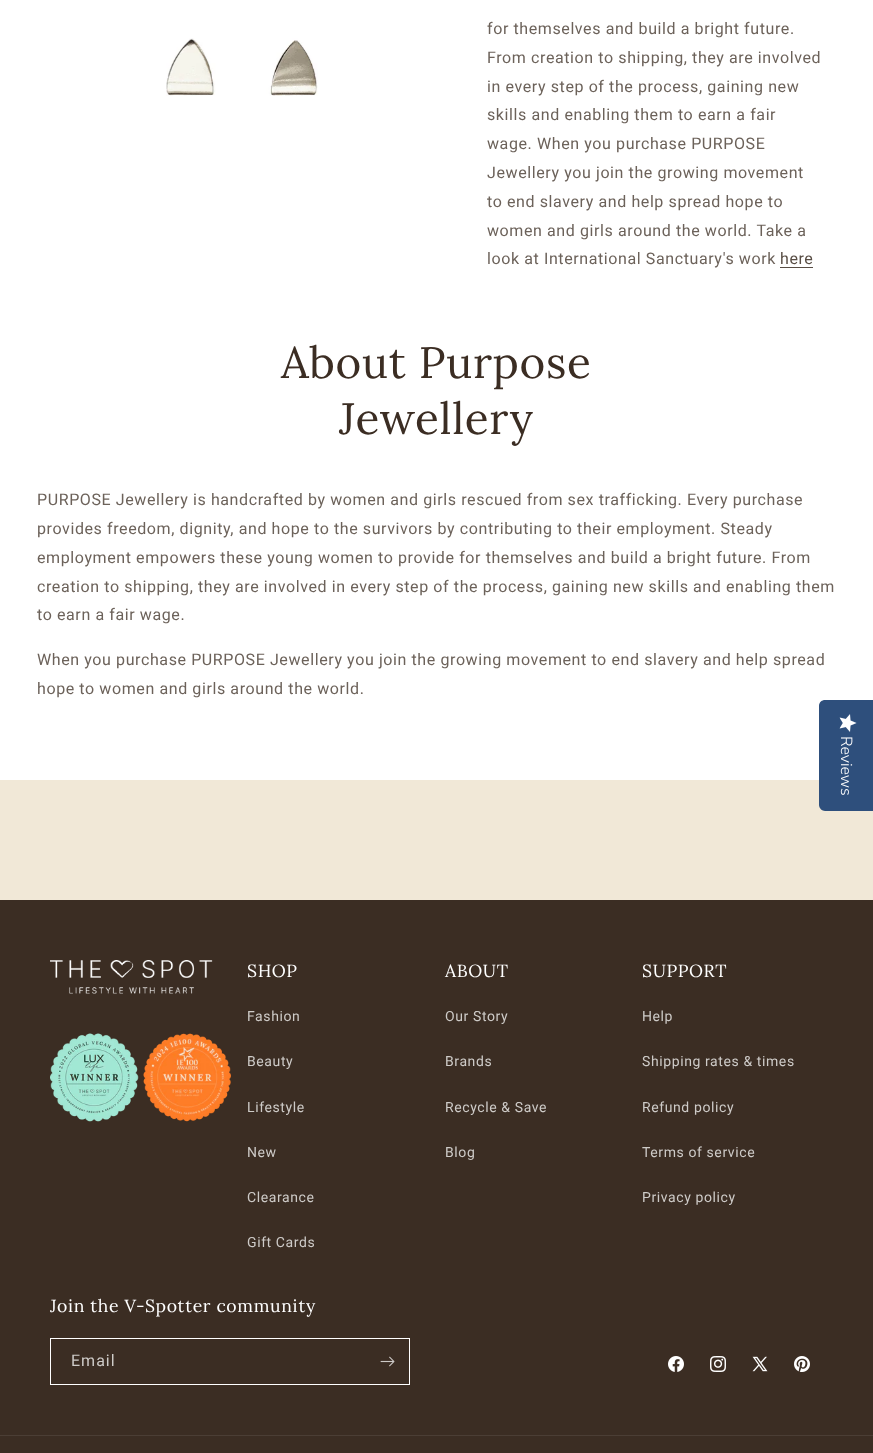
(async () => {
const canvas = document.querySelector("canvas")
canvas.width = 873
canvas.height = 1453
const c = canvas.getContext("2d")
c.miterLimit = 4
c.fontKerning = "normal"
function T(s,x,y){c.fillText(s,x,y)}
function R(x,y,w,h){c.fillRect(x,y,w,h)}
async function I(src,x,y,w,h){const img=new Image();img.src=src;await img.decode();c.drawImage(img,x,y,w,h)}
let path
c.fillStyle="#fff"
R(0,0,873,1453)
await I("1.png",166,38,152,58)
c.letterSpacing="0.6px"
c.font="16px Roboto"
c.fillStyle="#6c625a"
T("for themselves and build a bright future.",487,34)
T("From creation to shipping, they are involved",487,63)
T("in every step of the process, gaining new",487,92)
T("skills and enabling them to earn a fair",487,120)
T("wage. When you purchase PURPOSE",487,149)
T("Jewellery you join the growing movement",487,178)
T("to end slavery and help spread hope to",487,207)
T("women and girls around the world. Take a",487,236)
T("look at International Sanctuary's work",487,264)
c.fillStyle="#584d44"
T("here",780,264)
R(780,267,33,1)
c.letterSpacing="0.65px"
c.font="44px Lora"
c.fillStyle="#3b2d23"
T("About Purpose",281,378)
T("Jewellery",339,434)
c.letterSpacing="0.6px"
c.font="16px Roboto"
c.fillStyle="#6c625a"
T("PURPOSE Jewellery is handcrafted by women and girls rescued from sex trafficking. Every purchase",37,505)
T("provides freedom, dignity, and hope to the survivors by contributing to their employment. Steady",37,534)
T("employment empowers these young women to provide for themselves and build a bright future. From",37,563)
T("creation to shipping, they are involved in every step of the process, gaining new skills and enabling them",37,592)
T("to earn a fair wage.",37,620)
T("When you purchase PURPOSE Jewellery you join the growing movement to end slavery and help spread",37,665)
T("hope to women and girls around the world.",37,694)
c.fillStyle="#f1e8d7"
R(0,780,873,120)
c.fillStyle="#2e4f7c"
path = new Path2D("M873 700v111h-48c-3 0-6-3-6-6v-99c0-4 3-6 6-6z")
c.fill(path)
await I("2.png",839,714,18,18)
c.letterSpacing="0px"
c.font="300 16px Nunito Sans"
c.fillStyle="#fff"
c.save()
c.translate(841,736)
c.rotate(90 * Math.PI / 180)
c.fillText("Reviews",0,0)
c.restore()
c.fillStyle="#3b2d23"
R(0,900,873,553)
await I("3.png",50,960,181,162)
c.letterSpacing="0.65px"
c.font="17.6px Lora"
c.fillStyle="#fff"
T("SHOP",247,977)
c.letterSpacing="0.6px"
c.font="14px Roboto"
c.fillStyle="#cecbc8"
T("Fashion",247,1021)
T("Beauty",247,1066)
T("Lifestyle",247,1112)
T("New",247,1157)
T("Clearance",247,1202)
T("Gift Cards",247,1247)
c.letterSpacing="0.65px"
c.font="17.6px Lora"
c.fillStyle="#fff"
T("ABOUT",445,977)
c.letterSpacing="0.6px"
c.font="14px Roboto"
c.fillStyle="#cecbc8"
T("Our Story",445,1021)
T("Brands",445,1066)
T("Recycle & Save",445,1112)
T("Blog",445,1157)
c.letterSpacing="0.65px"
c.font="17.6px Lora"
c.fillStyle="#fff"
T("SUPPORT",642,977)
c.letterSpacing="0.6px"
c.font="14px Roboto"
c.fillStyle="#cecbc8"
T("Help",642,1021)
T("Shipping rates & times",642,1066)
T("Refund policy",642,1112)
T("Terms of service",642,1157)
T("Privacy policy",642,1202)
c.letterSpacing="0.65px"
c.font="17.6px Lora"
c.fillStyle="#fff"
T("Join the V-Spotter community",50,1312)
c.strokeStyle="#fff"
c.strokeRect(50.5,1338.5,359,46)
c.letterSpacing="1px"
c.font="16px Roboto"
c.fillStyle="#cecbc8"
T("Email",71,1366)
await I("4.png",380,1356,15,11)
await I("5.png",668,1356,16,16)
await I("6.png",710,1356,16,16)
await I("7.png",752,1356,16,16)
await I("8.png",794,1356,16,16)
c.fillStyle="#4b3e35"
R(0,1435,873,1)
})()
